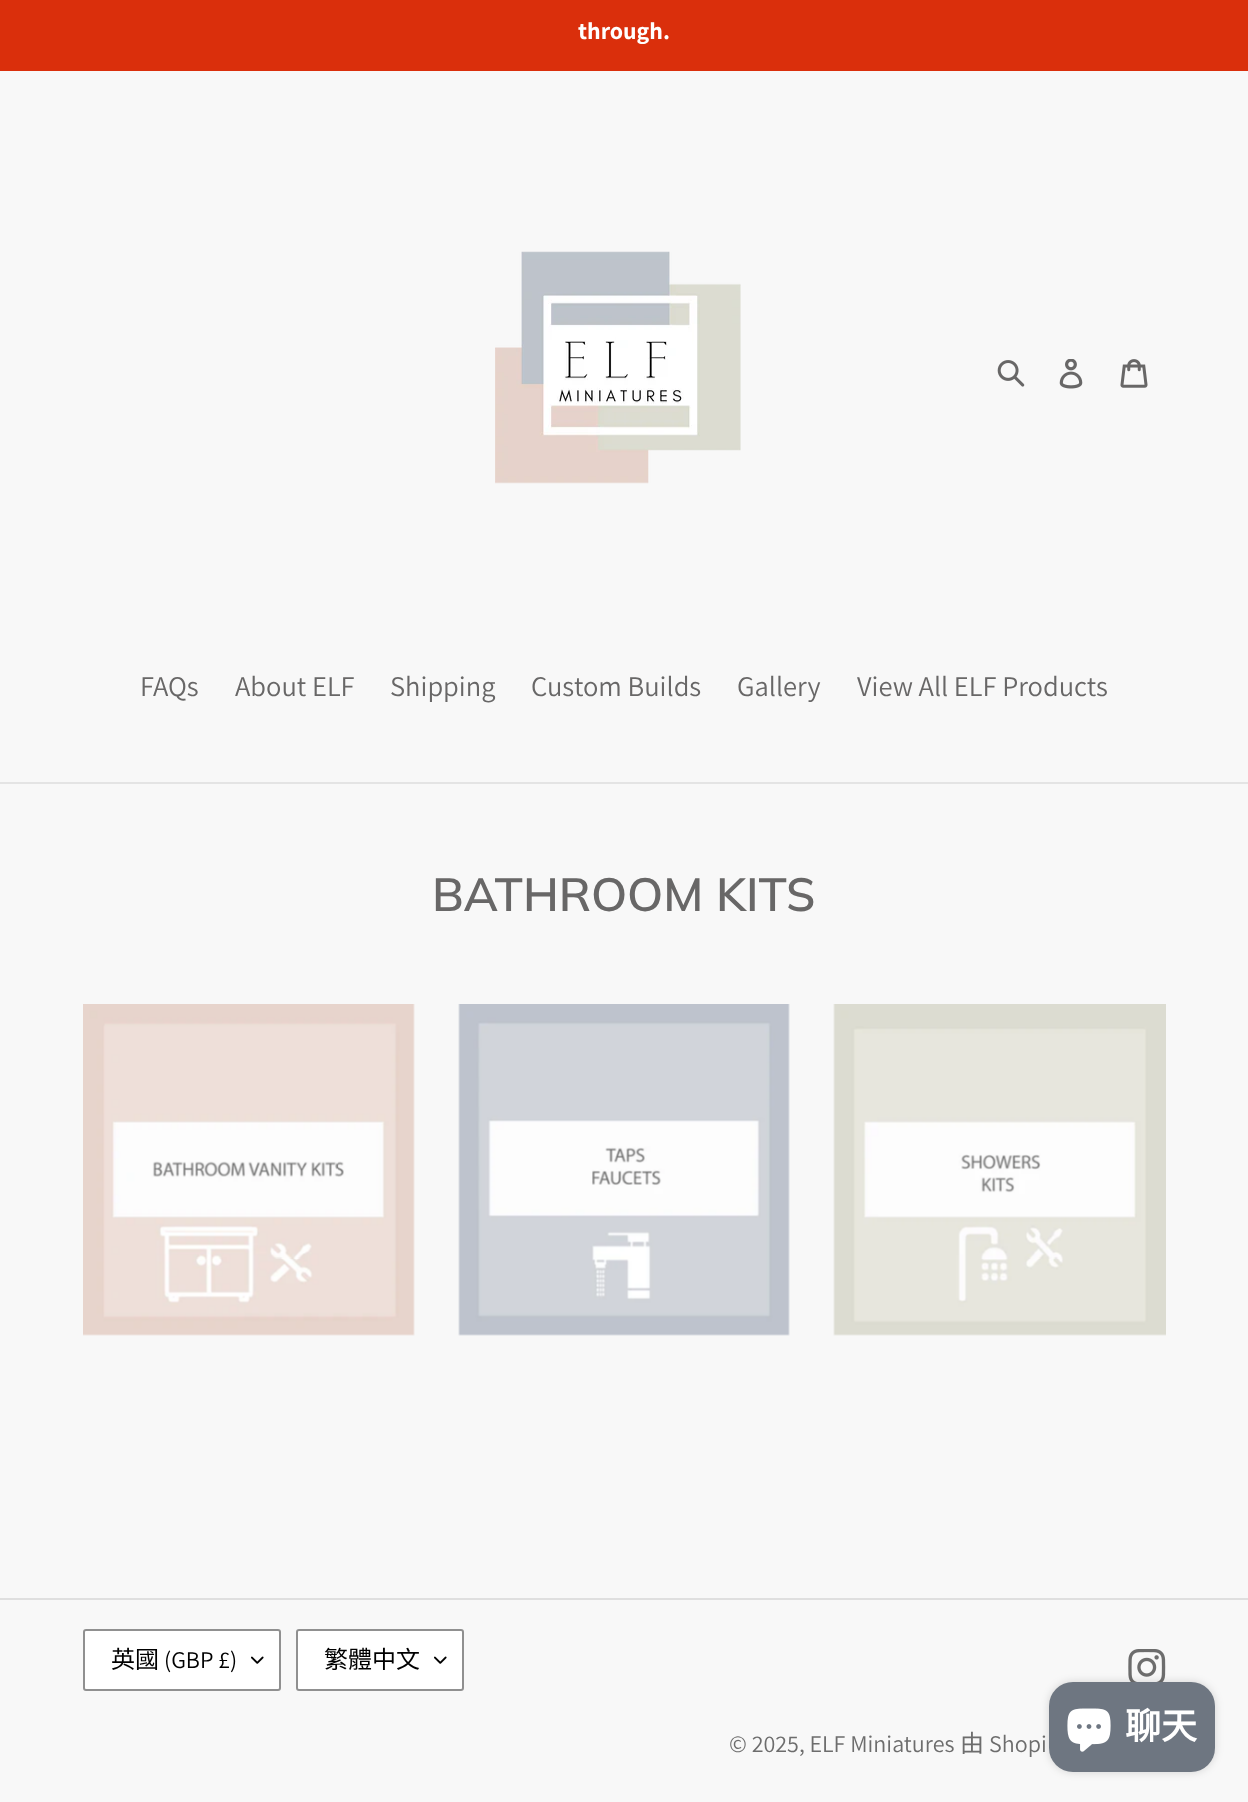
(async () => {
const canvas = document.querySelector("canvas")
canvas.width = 1248
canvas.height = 1802
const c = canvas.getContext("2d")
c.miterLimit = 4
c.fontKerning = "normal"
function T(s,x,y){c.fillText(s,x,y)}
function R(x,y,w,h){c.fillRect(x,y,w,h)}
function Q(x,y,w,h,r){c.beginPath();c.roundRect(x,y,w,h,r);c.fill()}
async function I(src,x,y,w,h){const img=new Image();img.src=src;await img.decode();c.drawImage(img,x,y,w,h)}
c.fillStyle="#f8f8f8"
R(0,0,1248,1802)
c.fillStyle="#da2f0c"
R(0,0,1248,71)
c.font="bold 24px Assistant"
c.fillStyle="#fff"
T("through.",578,39)
await I("1.png",495,251,246,233)
await I("2.png",997,360,28,27)
await I("3.png",1059,359,24,30)
await I("4.png",1120,359,28,29)
c.fillStyle="#e4e4e4"
R(0,782,1248,2)
c.font="28.5px Assistant"
c.fillStyle="#686767"
T("FAQs",140,696)
T("About ELF",235,696)
T("Shipping",390,696)
T("Custom Builds",531,696)
T("Gallery",737,696)
T("View All ELF Products",857,696)
c.font="600 46.5px Muli"
T("BATHROOM KITS",432,911)
await I("5.png",83,1004,332,332)
await I("6.png",458,1004,332,332)
await I("7.png",833,1004,333,332)
c.fillStyle="#dfdfdf"
R(0,1598,1248,2)
c.fillStyle="#fff"
Q(83,1629,198,62,3)
await I("8.png",251,1656,13,8)
c.beginPath()
c.roundRect(84,1630,196,60,2)
c.strokeStyle="#909090"
c.lineWidth=2
c.stroke()
c.font="24px Noto Sans CJK TC"
c.fillStyle="#000"
T("英國",111,1668)
c.font="24px Assistant"
T("(GBP £)",164,1668)
c.fillStyle="#fff"
Q(296,1629,168,62,3)
await I("8.png",434,1656,13,8)
c.beginPath()
c.roundRect(297,1630,166,60,2)
c.stroke()
c.font="24px Noto Sans CJK TC"
c.fillStyle="#000"
T("繁體中文",324,1668)
await I("9.png",1128,1649,38,33)
c.font="24px Assistant"
c.fillStyle="#6d6d6d"
T("© 2025, ELF Miniatures",729,1752)
c.font="24px Noto Sans CJK TC"
T("由",960,1752)
c.font="24px Assistant"
T("Shopi",989,1752)
c.fillStyle="#00000026"
c.filter="blur(4px)"
c.beginPath()
c.roundRect(1049,1682,166,90,24)
c.fill()
c.filter="none"
c.fillStyle="#6e7681"
Q(1049,1682,166,90,24)
await I("10.png",1067,1708,44,44)
c.font="bold 36px Noto Sans CJK TC"
c.fillStyle="#fff"
T("聊天",1125,1739)
})()
